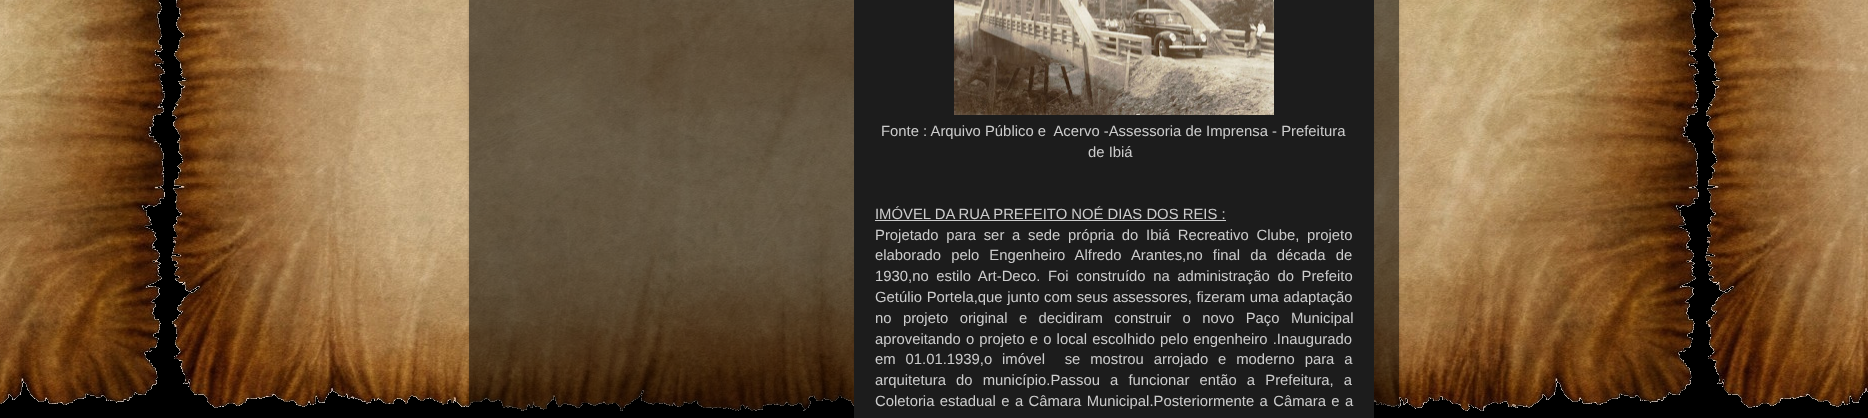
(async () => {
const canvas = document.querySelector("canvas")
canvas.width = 1868
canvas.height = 418
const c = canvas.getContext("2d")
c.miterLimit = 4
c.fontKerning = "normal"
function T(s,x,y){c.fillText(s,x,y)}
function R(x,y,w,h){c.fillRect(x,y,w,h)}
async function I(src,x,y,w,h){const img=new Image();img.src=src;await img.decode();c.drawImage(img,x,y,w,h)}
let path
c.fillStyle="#fff"
R(0,0,1868,418)
await I("1.png",0,0,1868,418)
c.save()
path = new Path2D("M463 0h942v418h-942zm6-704h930v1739h-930z")
c.clip(path,"evenodd")
c.fillStyle="#00000026"
c.filter="blur(1.5px)"
c.beginPath()
c.rect(469,-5,930,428)
c.fill()
c.filter="none"
c.restore()
c.fillStyle="#00000080"
R(469,0,930,412)
c.fillStyle="#1c1c1c"
R(854,0,520,418)
await I("2.png",954,0,320,115)
c.font="14.85px Liberation Sans"
c.fillStyle="#ccc"
T("Fonte : Arquivo Público e  Acervo -Assessoria de Imprensa - Prefeitura",881,136)
T("de Ibiá",1088,157)
T("IMÓVEL DA RUA PREFEITO NOÉ DIAS DOS REIS :",875,219)
R(875,220,351,1)
c.wordSpacing="3.6px"
T("Projetado para ser a sede própria do Ibiá Recreativo Clube, projeto",875,240)
c.wordSpacing="6px"
T("elaborado pelo Engenheiro Alfredo Arantes,no final da década de",875,260)
c.wordSpacing="3.5px"
T("1930,no estilo Art-Deco. Foi construído na administração do Prefeito",875,281)
c.wordSpacing="0.5px"
T("Getúlio Portela,que junto com seus assessores, fizeram uma adaptação",875,302)
c.wordSpacing="7.25px"
T("no projeto original e decidiram construir o novo Paço Municipal",875,323)
c.wordSpacing="1px"
T("aproveitando o projeto e o local escolhido pelo engenheiro .Inaugurado",875,344)
c.wordSpacing="5.75px"
T("em 01.01.1939,o imóvel  se mostrou arrojado e moderno para a",875,364)
c.wordSpacing="6px"
T("arquitetura do município.Passou a funcionar então a Prefeitura, a",875,385)
c.wordSpacing="1.25px"
T("Coletoria estadual e a Câmara Municipal.Posteriormente a Câmara e a",875,406)
})()
